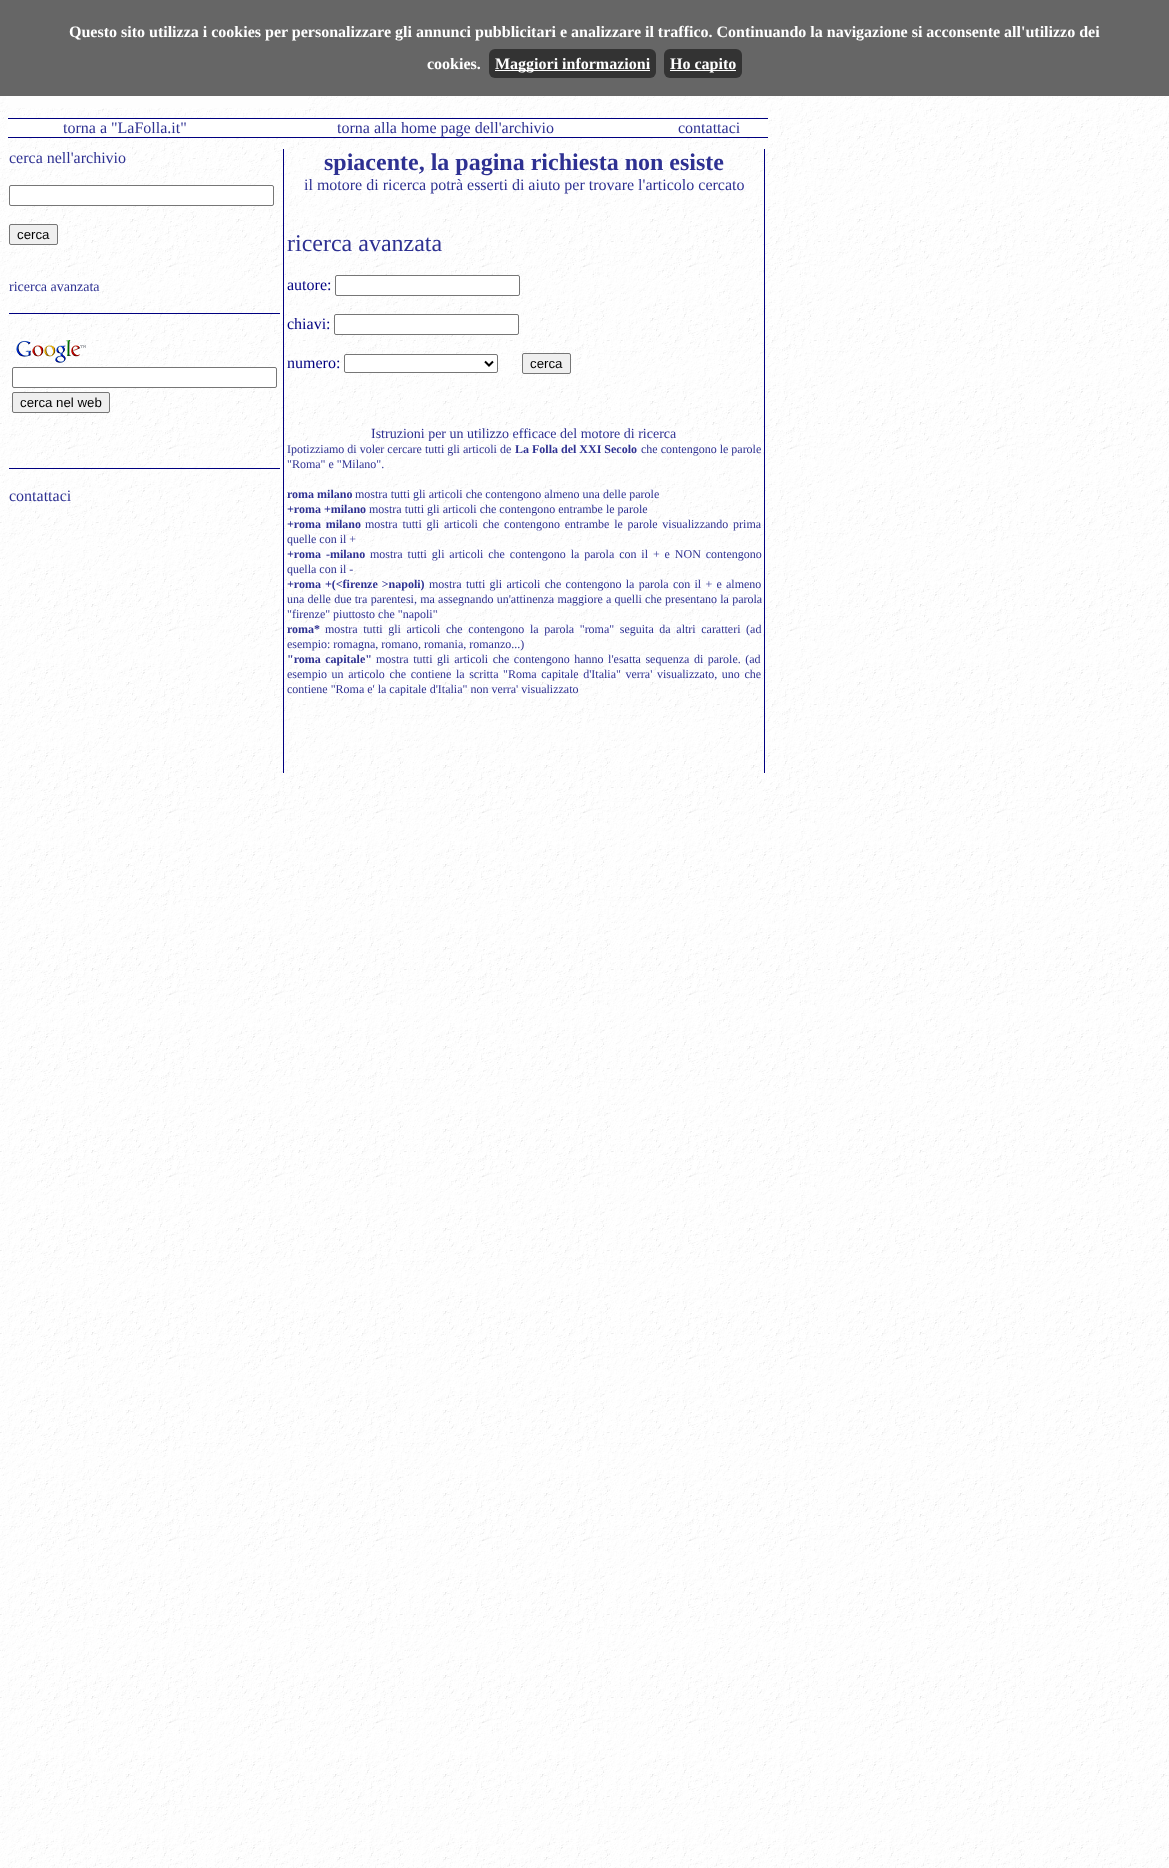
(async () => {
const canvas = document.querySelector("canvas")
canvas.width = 1169
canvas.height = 1868
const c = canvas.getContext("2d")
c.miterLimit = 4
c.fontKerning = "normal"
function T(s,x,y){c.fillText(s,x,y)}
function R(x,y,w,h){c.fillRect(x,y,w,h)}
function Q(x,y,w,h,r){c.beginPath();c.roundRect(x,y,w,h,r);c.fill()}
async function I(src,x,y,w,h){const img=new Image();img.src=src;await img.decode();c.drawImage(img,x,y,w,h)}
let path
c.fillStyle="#fff"
R(0,0,1169,1868)
await I("1.png",0,96,1169,1772)
c.fillStyle="#666"
R(0,0,1169,96)
c.font="bold 16px Liberation Serif"
c.fillStyle="#fff"
T("Questo sito utilizza i cookies per personalizzare gli annunci pubblicitari e analizzare il traffico. Continuando la navigazione si acconsente all'utilizzo dei",69,37)
T("cookies.",427,69)
c.fillStyle="#333"
Q(489,49,167,29,6)
c.fillStyle="#fff"
R(495,70,155,1)
T("Maggiori informazioni",495,69)
c.fillStyle="#333"
Q(664,49,78,29,6)
c.fillStyle="#fff"
R(670,70,66,1)
T("Ho capito",670,69)
await I("2.png",8,96,300,12)
c.fillStyle="#000080"
R(8,118,760,1)
c.fillStyle="#fff"
R(8,119,760,18)
c.font="16px Liberation Serif"
c.fillStyle="#2e3192"
T("torna a \"LaFolla.it\"",63,133)
T("torna alla home page dell'archivio",337,133)
T("contattaci",678,133)
c.fillStyle="#000080"
R(8,137,760,1)
c.fillStyle="#2e3192"
T("cerca nell'archivio",9,163)
c.fillStyle="#fff"
c.beginPath()
c.roundRect(9.5,185.5,264,20,1.5)
c.fill()
c.strokeStyle="#767676"
c.stroke()
c.fillStyle="#efefef"
c.beginPath()
c.roundRect(9.5,224.5,48,20,1.5)
c.fill()
c.stroke()
c.font="13.25px Liberation Sans"
c.fillStyle="#000"
T("cerca",17,239)
c.font="14px Liberation Serif"
c.fillStyle="#2e3192"
T("ricerca avanzata",9,291)
c.fillStyle="#000080"
R(9,313,271,1)
await I("3.png",16,340,70,23)
c.fillStyle="#fff"
c.beginPath()
c.roundRect(12.5,367.5,264,20,1.5)
c.fill()
c.stroke()
c.fillStyle="#efefef"
c.beginPath()
c.roundRect(12.5,392.5,97,20,1.5)
c.fill()
c.stroke()
c.font="13.25px Liberation Sans"
c.fillStyle="#000"
T("cerca nel web",20,407)
c.fillStyle="#000080"
R(9,468,271,1)
c.font="16px Liberation Serif"
c.fillStyle="#2e3192"
T("contattaci",9,501)
c.fillStyle="#000080"
R(283,149,1,624)
c.font="bold 24px Liberation Serif"
c.fillStyle="#2e3192"
T("spiacente, la pagina richiesta non esiste",324,170)
c.font="16px Liberation Serif"
T("il motore di ricerca potrà esserti di aiuto per trovare l'articolo cercato",304,190)
c.font="24px Liberation Serif"
T("ricerca avanzata",287,251)
c.font="16px Liberation Serif"
c.fillStyle="#000080"
T("autore:",287,290)
c.fillStyle="#fff"
c.beginPath()
c.roundRect(335.5,275.5,184,20,1.5)
c.fill()
c.stroke()
c.fillStyle="#000080"
T("chiavi:",287,329)
c.fillStyle="#fff"
c.beginPath()
c.roundRect(334.5,314.5,184,20,1.5)
c.fill()
c.stroke()
c.fillStyle="#000080"
T("numero:",287,368)
c.fillStyle="#fff"
c.beginPath()
c.roundRect(344.5,354.5,153,18,1.5)
c.fill()
c.stroke()
path = new Path2D("M485 361.5l4 4l4-4")
c.strokeStyle="#000"
c.lineWidth=2
c.stroke(path)
c.fillStyle="#efefef"
c.beginPath()
c.roundRect(522.5,353.5,48,20,1.5)
c.fill()
c.strokeStyle="#767676"
c.lineWidth=1
c.stroke()
c.font="13.25px Liberation Sans"
c.fillStyle="#000"
T("cerca",530,368)
c.font="14px Liberation Serif"
c.fillStyle="#2e3192"
T("Istruzioni per un utilizzo efficace del motore di ricerca",371,438)
c.font="12px Liberation Serif"
T("Ipotizziamo di voler cercare tutti gli articoli de",287,453)
c.font="bold 12px Liberation Serif"
T("La Folla del XXI Secolo",515,453)
c.font="12px Liberation Serif"
T("che contengono le parole",641,453)
T("\"Roma\" e \"Milano\".",287,468)
c.font="bold 12px Liberation Serif"
T("roma milano",287,498)
c.font="12px Liberation Serif"
T("mostra tutti gli articoli che contengono almeno una delle parole",355,498)
c.font="bold 12px Liberation Serif"
T("+roma +milano",287,513)
c.font="12px Liberation Serif"
T("mostra tutti gli articoli che contengono entrambe le parole",369,513)
c.wordSpacing="1.75px"
c.font="bold 12px Liberation Serif"
T("+roma milano",287,528)
c.font="12px Liberation Serif"
T("mostra tutti gli articoli che contengono entrambe le parole visualizzando prima",365,528)
c.wordSpacing="0px"
T("quelle con il +",287,543)
c.wordSpacing="2px"
c.font="bold 12px Liberation Serif"
T("+roma -milano",287,558)
c.wordSpacing="1.9px"
c.font="12px Liberation Serif"
T("mostra tutti gli articoli che contengono la parola con il + e NON contengono",370,558)
c.wordSpacing="0px"
T("quella con il -",287,573)
c.wordSpacing="1px"
c.font="bold 12px Liberation Serif"
T("+roma +(<firenze >napoli)",287,588)
c.wordSpacing="1.25px"
c.font="12px Liberation Serif"
T("mostra tutti gli articoli che contengono la parola con il + e almeno",429,588)
c.wordSpacing="0.25px"
T("una delle due tra parentesi, ma assegnando un'attinenza maggiore a quelli che presentano la parola",287,603)
c.wordSpacing="0px"
T("\"firenze\" piuttosto che \"napoli\"",287,618)
c.font="bold 12px Liberation Serif"
T("roma*",287,633)
c.wordSpacing="2.6px"
c.font="12px Liberation Serif"
T("mostra tutti gli articoli che contengono la parola \"roma\" seguita da altri caratteri (ad",325,633)
c.wordSpacing="0px"
T("esempio: romagna, romano, romania, romanzo...)",287,648)
c.wordSpacing="1.5px"
c.font="bold 12px Liberation Serif"
T("\"roma capitale\"",287,663)
c.font="12px Liberation Serif"
T("mostra tutti gli articoli che contengono hanno l'esatta sequenza di parole. (ad",376,663)
c.wordSpacing="1.6px"
T("esempio un articolo che contiene la scritta \"Roma capitale d'Italia\" verra' visualizzato, uno che",287,678)
c.wordSpacing="0px"
T("contiene \"Roma e' la capitale d'Italia\" non verra' visualizzato",287,693)
c.fillStyle="#000080"
R(764,149,1,624)
})()
